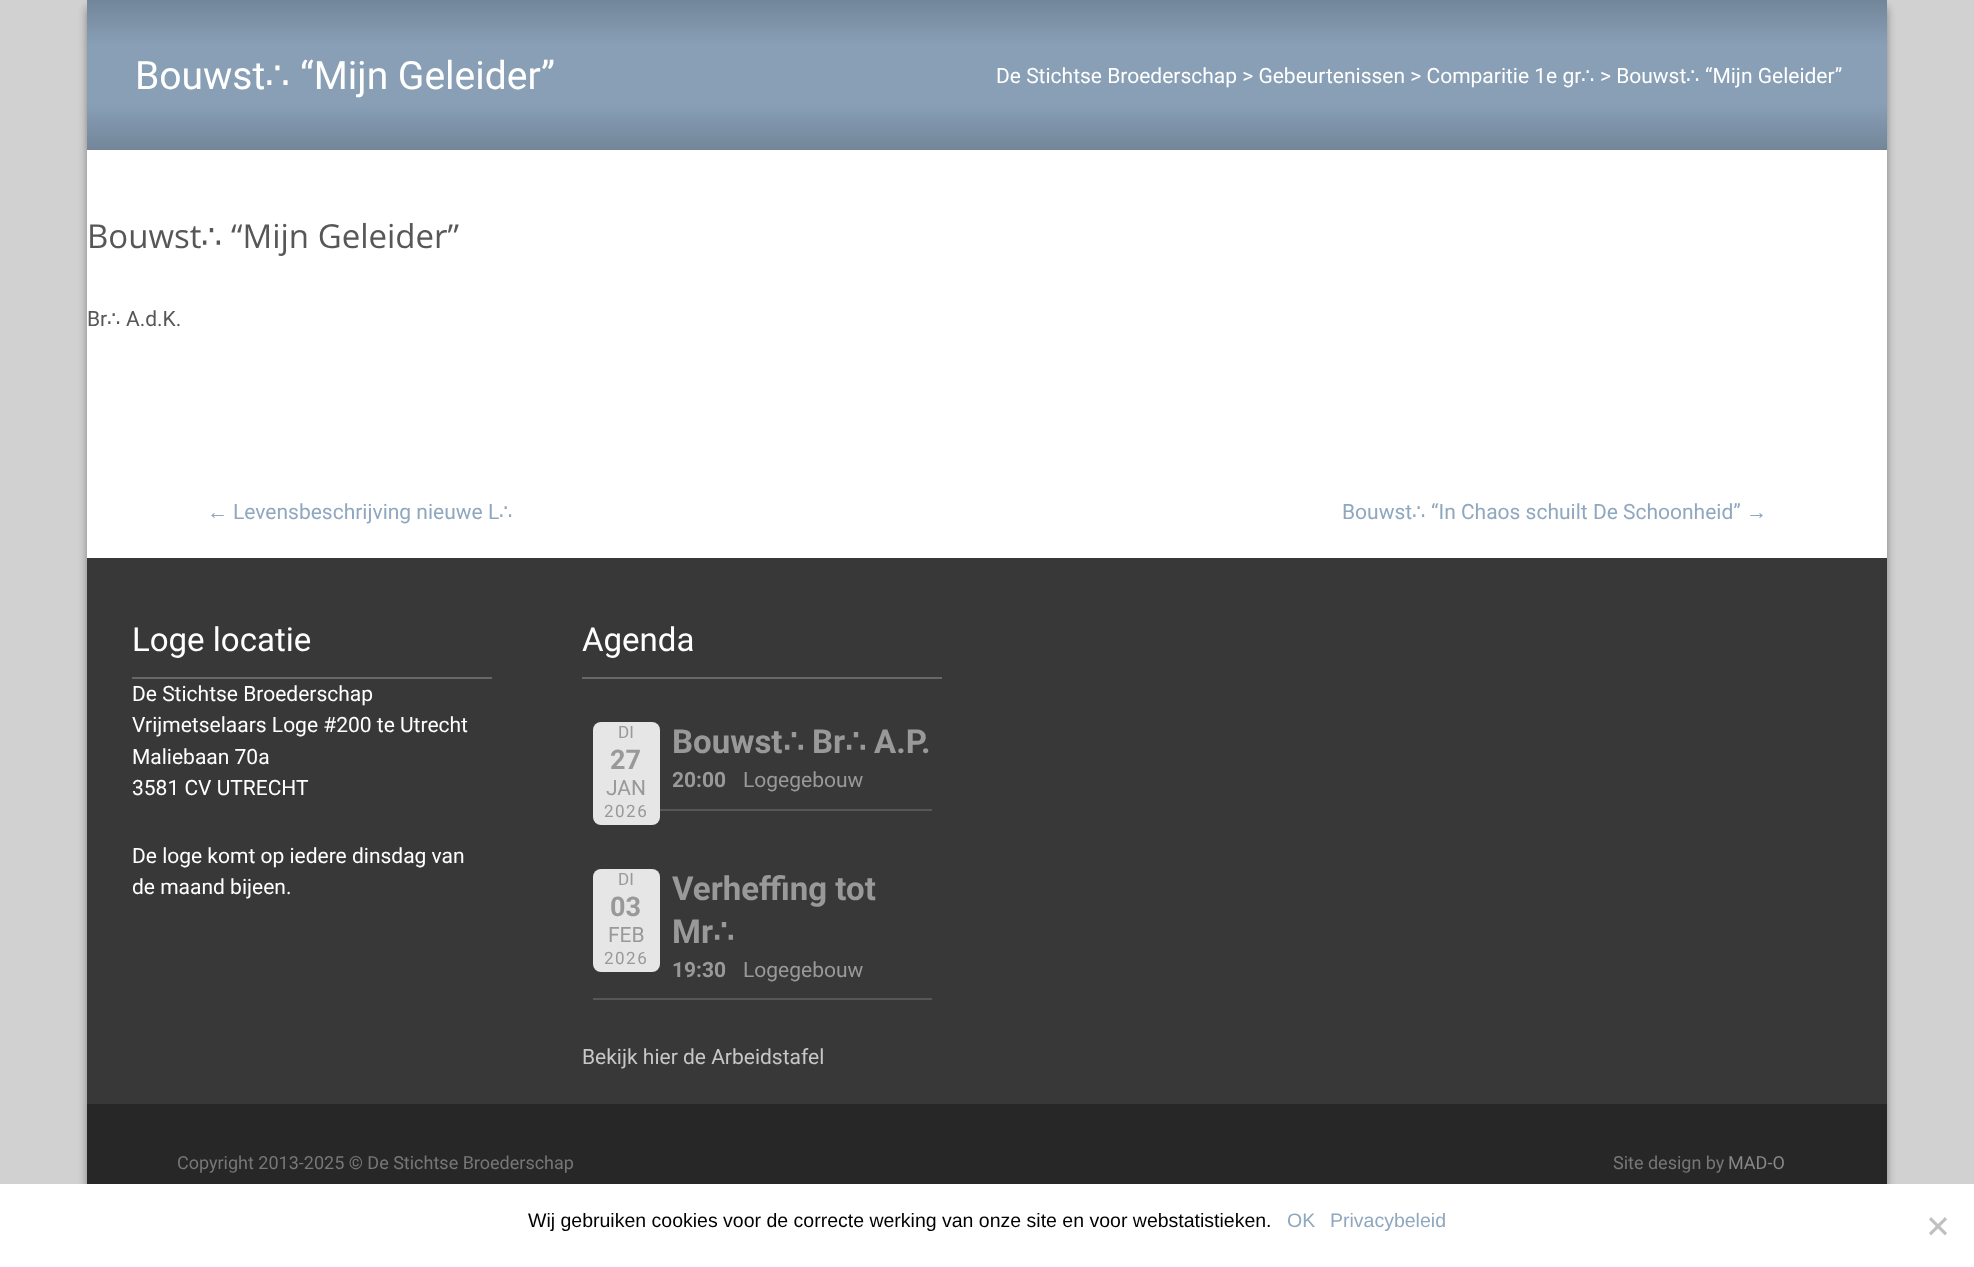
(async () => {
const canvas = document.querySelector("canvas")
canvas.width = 1974
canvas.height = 1267
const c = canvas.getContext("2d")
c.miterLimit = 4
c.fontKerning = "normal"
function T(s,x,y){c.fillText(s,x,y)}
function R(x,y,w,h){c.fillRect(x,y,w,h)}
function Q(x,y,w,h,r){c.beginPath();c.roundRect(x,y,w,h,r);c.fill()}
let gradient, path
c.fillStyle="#d1d1d1"
R(0,0,1974,1267)
c.fillStyle="#00000033"
c.filter="blur(4.5px)"
c.beginPath()
c.roundRect(87,6,1800,1209,6)
c.fill()
c.filter="none"
c.filter="blur(4.5px)"
c.beginPath()
c.roundRect(87,6,1800,1209,6)
c.fill()
c.filter="none"
c.fillStyle="#fff"
R(87,150,1800,408)
gradient = c.createLinearGradient(987,0,987,150)
gradient.addColorStop(0,"#738699")
gradient.addColorStop(.3,"#889fb6")
gradient.addColorStop(.69,"#889fb6")
gradient.addColorStop(1,"#738699")
c.fillStyle = gradient
R(87,0,1800,150)
c.font="39px Roboto"
c.fillStyle="#fff"
T("Bouwst",135,89)
c.font="39px DejaVu Sans"
T("∴",265,89)
c.font="39px Roboto"
T("“Mijn Geleider”",300,89)
c.font="21px Roboto"
T("De Stichtse Broederschap > Gebeurtenissen > Comparitie 1e gr",996,83)
c.font="21px DejaVu Sans"
T("∴",1581,83)
c.font="21px Roboto"
T("> Bouwst",1600,83)
c.font="21px DejaVu Sans"
T("∴",1686,83)
c.font="21px Roboto"
T("“Mijn Geleider”",1705,83)
c.font="33px Open Sans"
c.fillStyle="#575757"
T("Bouwst",87,248)
c.font="33px DejaVu Sans"
T("∴",201,248)
c.font="33px Open Sans"
T("“Mijn Geleider”",231,248)
c.font="21px Roboto"
T("Br",87,326)
c.font="21px DejaVu Sans"
T("∴",107,326)
c.font="21px Roboto"
T("A.d.K.",126,326)
c.font="21px Liberation Sans"
c.fillStyle="#8fa7bf"
T("←",207,519)
c.font="21px Roboto"
T("Levensbeschrijving nieuwe L",233,519)
c.font="21px DejaVu Sans"
T("∴",499,519)
c.font="21px Roboto"
T("Bouwst",1342,519)
c.font="21px DejaVu Sans"
T("∴",1412,519)
c.font="21px Roboto"
T("“In Chaos schuilt De Schoonheid”",1431,519)
c.font="21px Liberation Sans"
T("→",1746,519)
c.fillStyle="#272727"
R(87,1104,1800,80)
c.fillStyle="#383838"
R(87,558,1800,546)
c.fillStyle="#676767"
R(132,677,360,2)
c.font="33px Roboto"
c.fillStyle="#fff"
T("Loge locatie",132,651)
c.font="21px Roboto"
T("De Stichtse Broederschap",132,701)
T("Vrijmetselaars Loge #200 te Utrecht",132,732)
T("Maliebaan 70a",132,764)
T("3581 CV UTRECHT",132,795)
T("De loge komt op iedere dinsdag van",132,863)
T("de maand bijeen.",132,894)
c.fillStyle="#676767"
R(582,677,360,2)
c.font="33px Roboto"
c.fillStyle="#fff"
T("Agenda",582,651)
c.fillStyle="#575757"
R(660,809,272,2)
c.fillStyle="#e6e6e6"
Q(593,722,67,103,8)
c.font="17px Roboto"
c.fillStyle="#999"
T("DI",618,738)
c.font="bold 27px Roboto"
T("27",610,769)
c.font="21px Roboto"
T("JAN",606,795)
c.letterSpacing="1.5px"
c.font="17px Roboto"
T("2026",604,817)
c.letterSpacing="0px"
c.font="bold 33px Roboto"
T("Bouwst",672,753)
c.font="bold 33px DejaVu Sans"
T("∴",783,753)
c.font="bold 33px Roboto"
T("Br",812,753)
c.font="bold 33px DejaVu Sans"
T("∴",845,753)
c.font="bold 33px Roboto"
T("A.P.",874,753)
c.font="bold 21px Roboto"
T("20:00",672,787)
c.font="21px Roboto"
T("Logegebouw",743,787)
c.fillStyle="#575757"
R(593,998,339,2)
c.fillStyle="#e6e6e6"
Q(593,869,67,103,8)
c.font="17px Roboto"
c.fillStyle="#999"
T("DI",618,885)
c.font="bold 27px Roboto"
T("03",610,916)
c.font="21px Roboto"
T("FEB",608,942)
c.letterSpacing="1.5px"
c.font="17px Roboto"
T("2026",604,964)
c.letterSpacing="0px"
c.font="bold 33px Roboto"
T("Verheffing tot",672,900)
T("Mr",672,943)
c.font="bold 33px DejaVu Sans"
T("∴",713,943)
c.font="bold 21px Roboto"
T("19:30",672,977)
c.font="21px Roboto"
T("Logegebouw",743,977)
c.fillStyle="#c7c7c7"
T("Bekijk hier de Arbeidstafel",582,1064)
c.font="18px Roboto"
c.fillStyle="#777"
T("Copyright 2013-2025 © De Stichtse Broederschap",177,1169)
T("Site design by",1613,1169)
c.fillStyle="#878787"
T("MAD-O",1728,1169)
c.fillStyle="#fff"
R(0,1184,1974,83)
c.font="19.5px Liberation Sans"
c.fillStyle="#000"
T("Wij gebruiken cookies voor de correcte werking van onze site en voor webstatistieken.",528,1227)
c.fillStyle="#8fa7bf"
T("OK",1287,1227)
T("Privacybeleid",1330,1227)
c.fillStyle="#c0c0c0"
path = new Path2D("M1945 1217l2 2.5l-16 16l-2-2.5z")
c.fill(path)
path = new Path2D("M1929 1219.5l2-2.5l16 16l-2 2.5z")
c.fill(path)
})()
